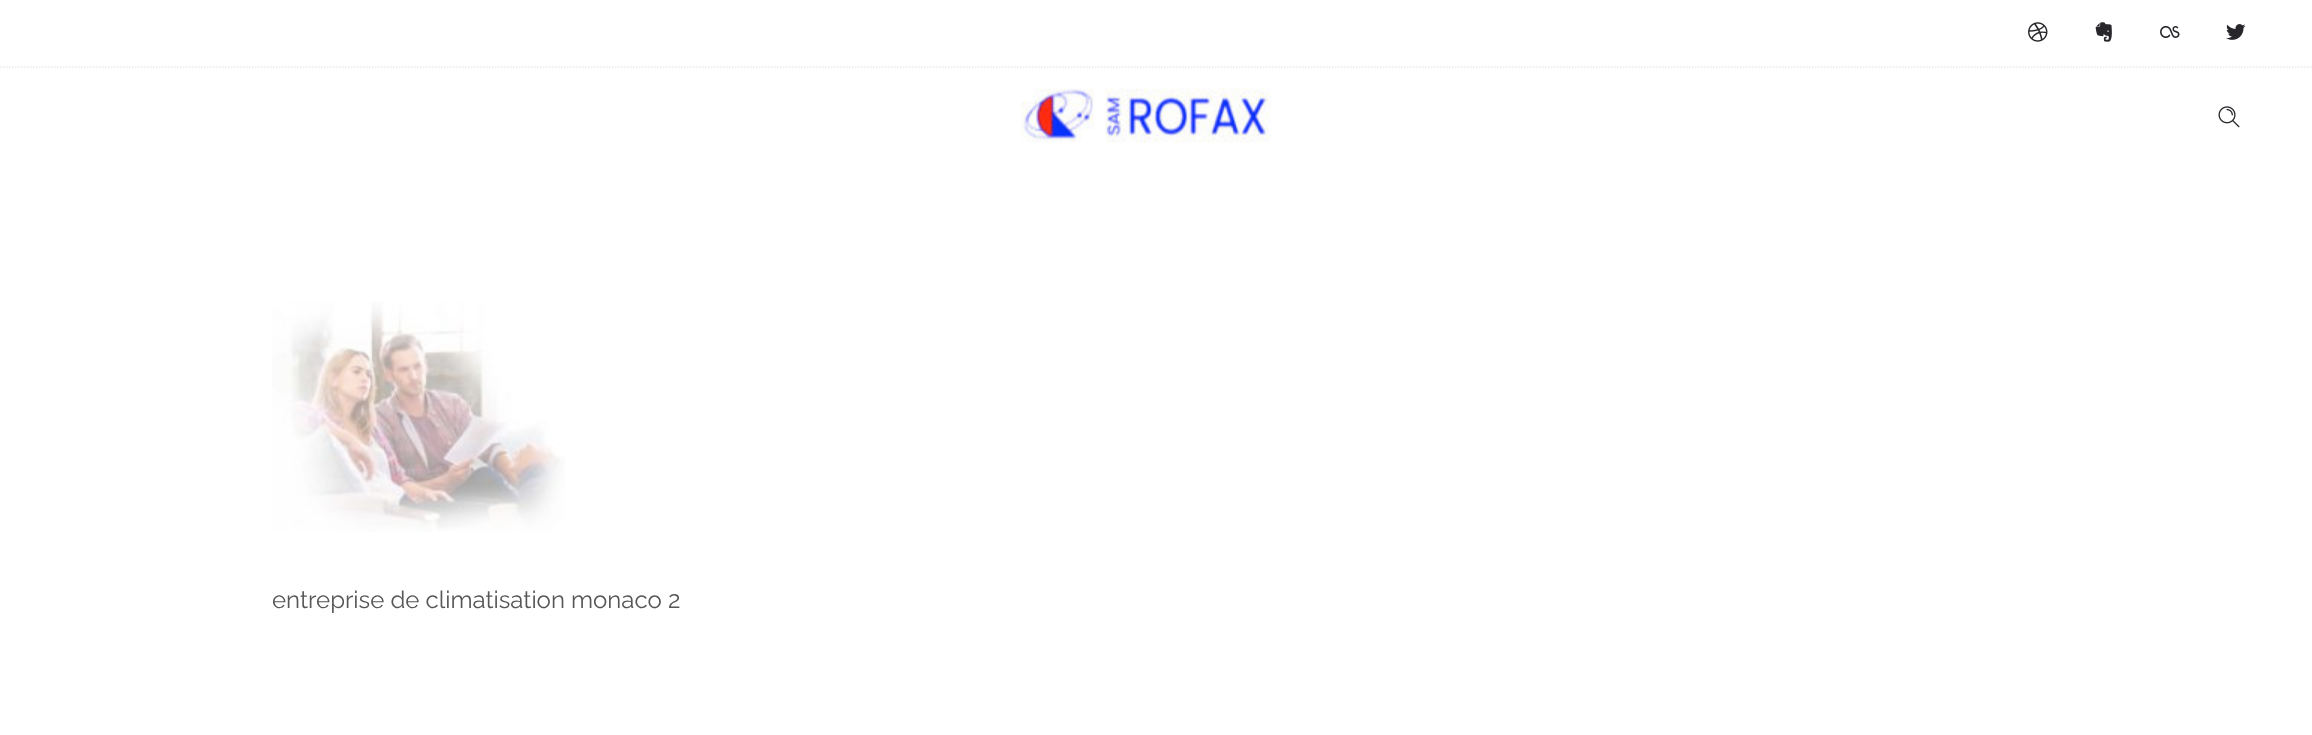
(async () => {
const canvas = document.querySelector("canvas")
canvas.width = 2312
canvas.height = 735
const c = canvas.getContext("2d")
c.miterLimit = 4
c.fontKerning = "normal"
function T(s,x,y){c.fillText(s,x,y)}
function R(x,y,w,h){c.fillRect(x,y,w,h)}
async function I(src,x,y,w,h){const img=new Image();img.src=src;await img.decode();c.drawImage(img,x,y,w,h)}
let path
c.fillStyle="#fff"
R(0,0,2312,735)
path = new Path2D("M0 67h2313")
c.strokeStyle="#eae9ea"
c.lineWidth=1.5
c.setLineDash([1.5,1.5])
c.stroke(path)
await I("1.png",2028,22,20,20)
await I("2.png",2095,22,17,20)
await I("3.png",2160,25,20,13)
await I("4.png",2226,24,20,16)
await I("5.png",1021,88,250,55)
await I("6.png",2218,106,22,22)
await I("7.png",272,301,293,231)
c.font="24px Raleway"
c.fillStyle="#565656"
T("entreprise de climatisation monaco 2",272,608)
})()
